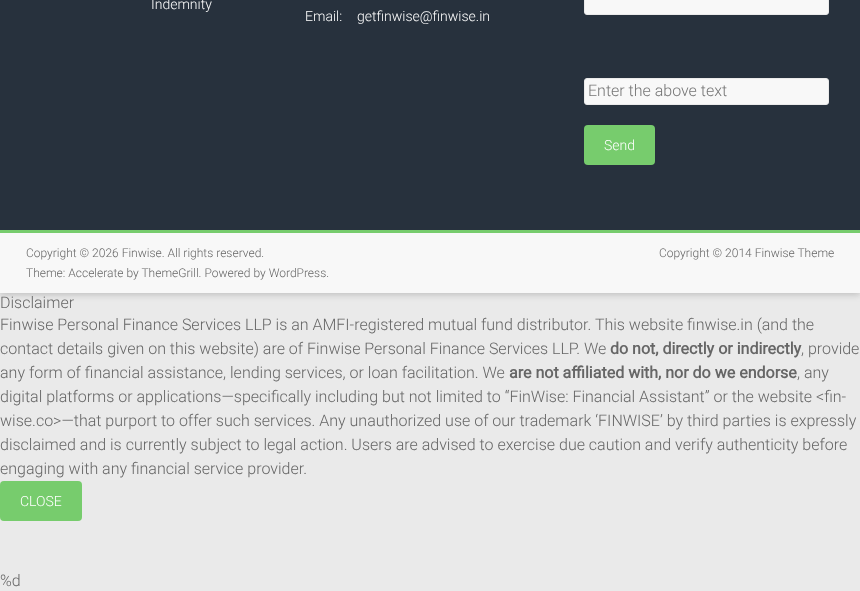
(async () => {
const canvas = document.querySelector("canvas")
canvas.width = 860
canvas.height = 591
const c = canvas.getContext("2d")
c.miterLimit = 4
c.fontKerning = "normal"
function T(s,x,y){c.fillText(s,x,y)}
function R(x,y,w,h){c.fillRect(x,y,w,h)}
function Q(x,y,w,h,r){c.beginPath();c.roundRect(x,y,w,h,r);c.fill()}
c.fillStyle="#eaeaea"
R(0,0,860,591)
c.fillStyle="#6464644d"
c.filter="blur(3px)"
c.beginPath()
c.rect(0,-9,860,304)
c.fill()
c.filter="none"
c.fillStyle="#27313d"
R(0,0,860,230)
c.font="300 14px Roboto"
c.fillStyle="#fff"
T("Indemnity",151,9)
T("Email:",305,21)
T("getfinwise@finwise.in",357,21)
c.fillStyle="#f8f8f8"
c.beginPath()
c.roundRect(584.5,-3.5,244,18,2.5)
c.fill()
c.strokeStyle="#eaeaea"
c.stroke()
c.beginPath()
c.roundRect(584.5,78.5,244,26,2.5)
c.fill()
c.stroke()
c.font="300 16px Roboto"
c.fillStyle="#757575"
T("Enter the above text",588,96)
c.fillStyle="#77cc6d"
Q(584,125,71,40,4)
c.font="300 14px Roboto"
c.fillStyle="#fff"
T("Send",604,150)
c.fillStyle="#f8f8f8"
R(0,233,860,60)
c.fillStyle="#77cc6d"
R(0,230,860,3)
c.font="300 12px Roboto"
c.fillStyle="#666"
T("Copyright © 2026 Finwise. All rights reserved.",26,257)
T("Theme: Accelerate by ThemeGrill. Powered by WordPress.",26,277)
T("Copyright © 2014 Finwise Theme",659,257)
c.font="300 16px Roboto"
T("Disclaimer",0,308)
T("Finwise Personal Finance Services LLP is an AMFI-registered mutual fund distributor. This website finwise.in (and the",0,330)
T("contact details given on this website) are of Finwise Personal Finance Services LLP. We",0,354)
c.font="bold 16px Roboto"
T("do not, directly or indirectly",610,354)
c.font="300 16px Roboto"
T(", provide",801,354)
T("any form of financial assistance, lending services, or loan facilitation. We",0,378)
c.font="bold 16px Roboto"
T("are not affiliated with, nor do we endorse",509,378)
c.font="300 16px Roboto"
T(", any",797,378)
T("digital platforms or applications—specifically including but not limited to “FinWise: Financial Assistant” or the website <fin-",0,402)
T("wise.co>—that purport to offer such services. Any unauthorized use of our trademark ‘FINWISE’ by third parties is expressly",0,426)
T("disclaimed and is currently subject to legal action. Users are advised to exercise due caution and verify authenticity before",0,450)
T("engaging with any financial service provider.",0,474)
c.fillStyle="#77cc6d"
Q(0,481,82,40,4)
c.font="300 14px Roboto"
c.fillStyle="#fff"
T("CLOSE",20,506)
c.font="300 16px Roboto"
c.fillStyle="#666"
T("%d",0,586)
})()
